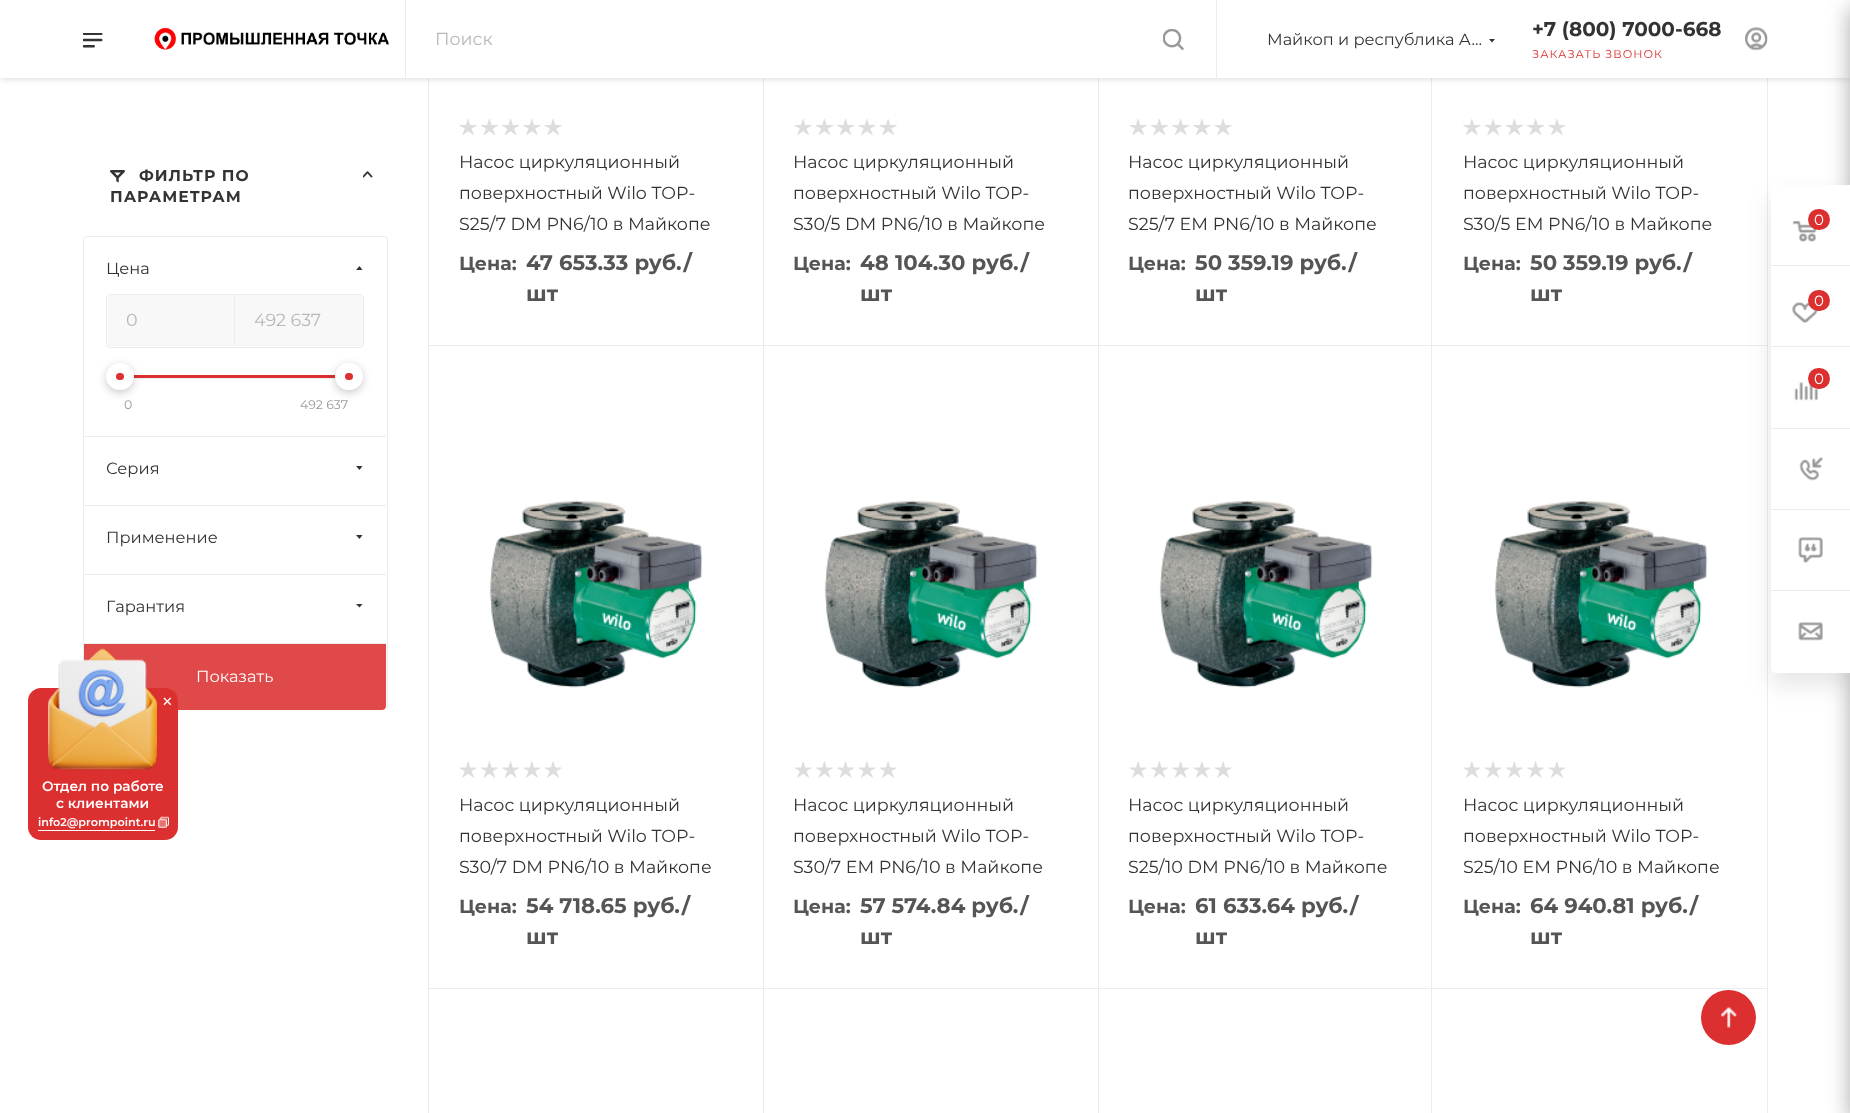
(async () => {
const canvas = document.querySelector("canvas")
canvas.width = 1850
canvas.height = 1113
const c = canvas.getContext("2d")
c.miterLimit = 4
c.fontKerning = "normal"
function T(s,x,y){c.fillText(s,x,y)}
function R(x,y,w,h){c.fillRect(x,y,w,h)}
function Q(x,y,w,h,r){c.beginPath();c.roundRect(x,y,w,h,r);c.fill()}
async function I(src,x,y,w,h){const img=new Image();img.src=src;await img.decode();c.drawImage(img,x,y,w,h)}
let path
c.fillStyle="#fff"
R(0,0,1850,1113)
c.strokeStyle="#ececec"
c.strokeRect(428.5,-.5,335,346)
c.strokeRect(763.5,-.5,335,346)
c.strokeRect(1098.5,-.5,334,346)
R(1432,78,1,267)
c.strokeRect(1431.5,-.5,336,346)
c.fillStyle="#00000024"
c.filter="blur(3px)"
c.beginPath()
c.rect(0,1,1850,78)
c.fill()
c.filter="none"
c.fillStyle="#fff"
R(0,0,1850,78)
await I("1.png",83,33,20,15)
await I("2.png",154,27,235,23)
c.fillStyle="#ececec"
R(1216,0,1,78)
R(405,0,1,78)
c.font="17.5px Montserrat"
c.fillStyle="#b8b8b8"
T("Поиск",435,45)
await I("3.png",1163,29,21,21)
c.font="16.25px Montserrat"
c.fillStyle="#333"
T("Майкоп и республика А…",1267,45)
path = new Path2D("M1489 39h6l-3 3.5z")
c.fill(path,"evenodd")
c.font="bold 20px Montserrat"
T("+7 (800) 7000-668",1532,36)
c.letterSpacing="1px"
c.font="11.25px Montserrat"
c.fillStyle="#dc2f2f"
T("ЗАКАЗАТЬ ЗВОНОК",1532,58)
await I("4.png",1745,27,23,24)
await I("5.png",110,170,15,13)
c.font="bold 15.6px Montserrat"
c.fillStyle="#333"
T("ФИЛЬТР ПО",139,181)
await I("6.png",363,171,10,7)
T("ПАРАМЕТРАМ",110,202)
c.beginPath()
c.roundRect(83.5,236.5,304,473,3.5)
c.stroke()
c.fillStyle="#ececec"
R(84,436,302,1)
c.letterSpacing="0px"
c.font="16.25px Montserrat"
c.fillStyle="#333"
T("Цена",106,274)
path = new Path2D("M362.5 270h-6.5l3.5-4z")
c.fill(path,"evenodd")
c.beginPath()
c.roundRect(106.5,294.5,257,53,3.5)
c.stroke()
c.fillStyle="#f8f8f8"
R(108,295,126,51)
c.fillStyle="#ececec"
R(234,295,1,51)
c.font="17.5px Montserrat"
c.fillStyle="#b8b8b8"
T("0",126,326)
c.fillStyle="#f8f8f8"
R(235,295,128,51)
c.fillStyle="#b8b8b8"
T("492 637",254,326)
c.fillStyle="#dc2f2f"
R(133,375,203,3)
c.fillStyle="#f2f2f2"
R(133,378,203,1)
c.fillStyle="#00000033"
c.filter="blur(4px)"
c.beginPath()
c.roundRect(106,365,28,28,14)
c.fill()
c.filter="none"
c.fillStyle="#fff"
Q(106,363,28,27,13.5)
c.fillStyle="#dc2f2f"
Q(116,373,8,7,3.5)
c.fillStyle="#00000033"
c.filter="blur(4px)"
c.beginPath()
c.roundRect(335,365,28,28,14)
c.fill()
c.filter="none"
c.fillStyle="#fff"
Q(335,363,28,27,13.5)
c.fillStyle="#dc2f2f"
Q(345,373,8,7,3.5)
c.font="12.5px Montserrat"
c.fillStyle="#999"
T("0",124,409)
T("492 637",300,409)
c.fillStyle="#ececec"
R(84,505,302,1)
c.font="16.25px Montserrat"
c.fillStyle="#333"
T("Серия",106,474)
path = new Path2D("M356 466h6.5l-3 4z")
c.fill(path,"evenodd")
c.fillStyle="#ececec"
R(84,574,302,1)
c.fillStyle="#333"
T("Применение",106,543)
path = new Path2D("M356 535h6.5l-3 4z")
c.fill(path,"evenodd")
c.fillStyle="#fafafa"
R(384,706,2,3)
c.fillStyle="#e04949"
c.beginPath()
c.roundRect(84.5,643.5,301,66,[0,0,3.5,3.5])
c.fill()
c.strokeStyle="#e04949"
c.stroke()
c.fillStyle="#ececec"
R(84,643,302,1)
c.fillStyle="#333"
T("Гарантия",106,612)
path = new Path2D("M356 604h6.5l-3 3.5z")
c.fill(path,"evenodd")
c.fillStyle="#fff"
T("Показать",196,682)
await I("7.png",459,119,18,16)
await I("8.png",480,119,18,16)
await I("9.png",502,119,18,16)
await I("10.png",523,119,18,16)
await I("7.png",544,119,18,16)
c.font="17.5px Montserrat"
c.fillStyle="#333"
T("Насос циркуляционный",459,168)
T("поверхностный Wilo TOP-",459,199)
T("S25/7 DM PN6/10 в Майкопе",459,230)
c.font="bold 19px Montserrat"
c.fillStyle="#555"
T("Цена:",459,270)
c.font="bold 21.25px Montserrat"
T("47 653.33 руб./",526,270)
T("шт",526,301)
await I("7.png",794,119,18,16)
await I("8.png",815,119,18,16)
await I("9.png",837,119,18,16)
await I("10.png",858,119,18,16)
await I("7.png",879,119,18,16)
c.font="17.5px Montserrat"
c.fillStyle="#333"
T("Насос циркуляционный",793,168)
T("поверхностный Wilo TOP-",793,199)
T("S30/5 DM PN6/10 в Майкопе",793,230)
c.font="bold 19px Montserrat"
c.fillStyle="#555"
T("Цена:",793,270)
c.font="bold 21.25px Montserrat"
T("48 104.30 руб./",860,270)
T("шт",860,301)
await I("7.png",1129,119,18,16)
await I("8.png",1150,119,18,16)
await I("9.png",1172,119,18,16)
await I("10.png",1193,119,18,16)
await I("7.png",1214,119,18,16)
c.font="17.5px Montserrat"
c.fillStyle="#333"
T("Насос циркуляционный",1128,168)
T("поверхностный Wilo TOP-",1128,199)
T("S25/7 EM PN6/10 в Майкопе",1128,230)
c.font="bold 19px Montserrat"
c.fillStyle="#555"
T("Цена:",1128,270)
c.font="bold 21.25px Montserrat"
T("50 359.19 руб./",1195,270)
T("шт",1195,301)
await I("10.png",1463,119,18,16)
await I("7.png",1484,119,18,16)
await I("8.png",1505,119,18,16)
await I("9.png",1527,119,18,16)
await I("10.png",1548,119,18,16)
c.font="17.5px Montserrat"
c.fillStyle="#333"
T("Насос циркуляционный",1463,168)
T("поверхностный Wilo TOP-",1463,199)
T("S30/5 EM PN6/10 в Майкопе",1463,230)
c.font="bold 19px Montserrat"
c.fillStyle="#555"
T("Цена:",1463,270)
c.font="bold 21.25px Montserrat"
T("50 359.19 руб./",1530,270)
T("шт",1530,301)
c.strokeStyle="#ececec"
c.strokeRect(428.5,345.5,335,643)
await I("11.png",489,500,214,188)
await I("12.png",459,761,18,17)
await I("13.png",481,761,17,17)
await I("14.png",502,761,17,17)
await I("15.png",523,761,18,17)
await I("12.png",544,761,18,17)
c.font="17.5px Montserrat"
c.fillStyle="#333"
T("Насос циркуляционный",459,811)
T("поверхностный Wilo TOP-",459,842)
T("S30/7 DM PN6/10 в Майкопе",459,873)
c.font="bold 19px Montserrat"
c.fillStyle="#555"
T("Цена:",459,913)
c.font="bold 21.25px Montserrat"
T("54 718.65 руб./",526,913)
T("шт",526,944)
c.strokeRect(763.5,345.5,335,643)
await I("16.png",824,500,214,188)
await I("12.png",794,761,18,17)
await I("13.png",816,761,17,17)
await I("14.png",837,761,17,17)
await I("15.png",858,761,18,17)
await I("12.png",879,761,18,17)
c.font="17.5px Montserrat"
c.fillStyle="#333"
T("Насос циркуляционный",793,811)
T("поверхностный Wilo TOP-",793,842)
T("S30/7 EM PN6/10 в Майкопе",793,873)
c.font="bold 19px Montserrat"
c.fillStyle="#555"
T("Цена:",793,913)
c.font="bold 21.25px Montserrat"
T("57 574.84 руб./",860,913)
T("шт",860,944)
c.strokeRect(1098.5,345.5,334,643)
await I("17.png",1159,500,214,188)
await I("12.png",1129,761,18,17)
await I("13.png",1151,761,17,17)
await I("14.png",1172,761,17,17)
await I("15.png",1193,761,18,17)
await I("12.png",1214,761,18,17)
c.font="17.5px Montserrat"
c.fillStyle="#333"
T("Насос циркуляционный",1128,811)
T("поверхностный Wilo TOP-",1128,842)
T("S25/10 DM PN6/10 в Майкопе",1128,873)
c.font="bold 19px Montserrat"
c.fillStyle="#555"
T("Цена:",1128,913)
c.font="bold 21.25px Montserrat"
T("61 633.64 руб./",1195,913)
T("шт",1195,944)
c.fillStyle="#fff"
R(1432,346,1,642)
c.strokeRect(1431.5,345.5,336,643)
await I("18.png",1494,500,214,188)
await I("15.png",1463,761,18,17)
await I("12.png",1484,761,18,17)
await I("13.png",1506,761,17,17)
await I("14.png",1527,761,17,17)
await I("15.png",1548,761,18,17)
c.font="17.5px Montserrat"
c.fillStyle="#333"
T("Насос циркуляционный",1463,811)
T("поверхностный Wilo TOP-",1463,842)
T("S25/10 EM PN6/10 в Майкопе",1463,873)
c.font="bold 19px Montserrat"
c.fillStyle="#555"
T("Цена:",1463,913)
c.font="bold 21.25px Montserrat"
T("64 940.81 руб./",1530,913)
T("шт",1530,944)
c.strokeRect(428.5,988.5,335,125)
c.strokeRect(763.5,988.5,335,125)
c.strokeRect(1098.5,988.5,334,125)
c.fillStyle="#fff"
R(1432,989,1,124)
c.strokeRect(1431.5,988.5,336,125)
c.fillStyle="#2c2c2c66"
c.filter="blur(11px)"
c.beginPath()
c.roundRect(1850,8,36,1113,2.5)
c.fill()
c.filter="none"
c.fillStyle="#0000001a"
c.filter="blur(12.5px)"
c.beginPath()
c.roundRect(1771,198,79,487,5)
c.fill()
c.filter="none"
c.fillStyle="#fff"
c.beginPath()
c.roundRect(1771,185,79,488,[5,0,0,5])
c.fill()
c.fillStyle="#ececec"
R(1771,265,79,1)
await I("19.png",1792,221,25,21)
c.fillStyle="#dc2f2f"
Q(1808,209,22,21,10.5)
c.font="15px Montserrat"
c.fillStyle="#fff"
T("0",1814,225)
c.fillStyle="#ececec"
R(1771,346,79,1)
await I("20.png",1792,302,26,21)
c.fillStyle="#dc2f2f"
Q(1808,290,22,21,10.5)
c.fillStyle="#fff"
T("0",1814,306)
c.fillStyle="#ececec"
R(1771,428,79,1)
await I("21.png",1794,382,24,19)
c.fillStyle="#dc2f2f"
Q(1808,368,22,21,10.5)
c.fillStyle="#fff"
T("0",1814,384)
c.fillStyle="#ececec"
R(1771,509,79,1)
await I("22.png",1799,457,24,24)
R(1771,590,79,1)
await I("23.png",1798,537,25,26)
await I("24.png",1798,622,25,19)
c.fillStyle="#dc2f2f"
Q(28,688,150,152,13)
c.font="22px Montserrat"
c.fillStyle="#fff"
T("×",161,709)
await I("25.png",48,647,109,124)
c.font="600 13.75px Montserrat"
T("Отдел по работе",42,791)
T("с клиентами",56,808)
c.font="600 11.25px Montserrat"
T("info2@prompoint.ru",38,826)
R(38,830,117,1)
await I("26.png",158,816,11,12)
c.fillStyle="#dc2f2f"
c.beginPath()
c.arc(1728.5,1017.5,27.5,0,7)
c.fill()
await I("27.png",1721,1007,16,21)
})()
